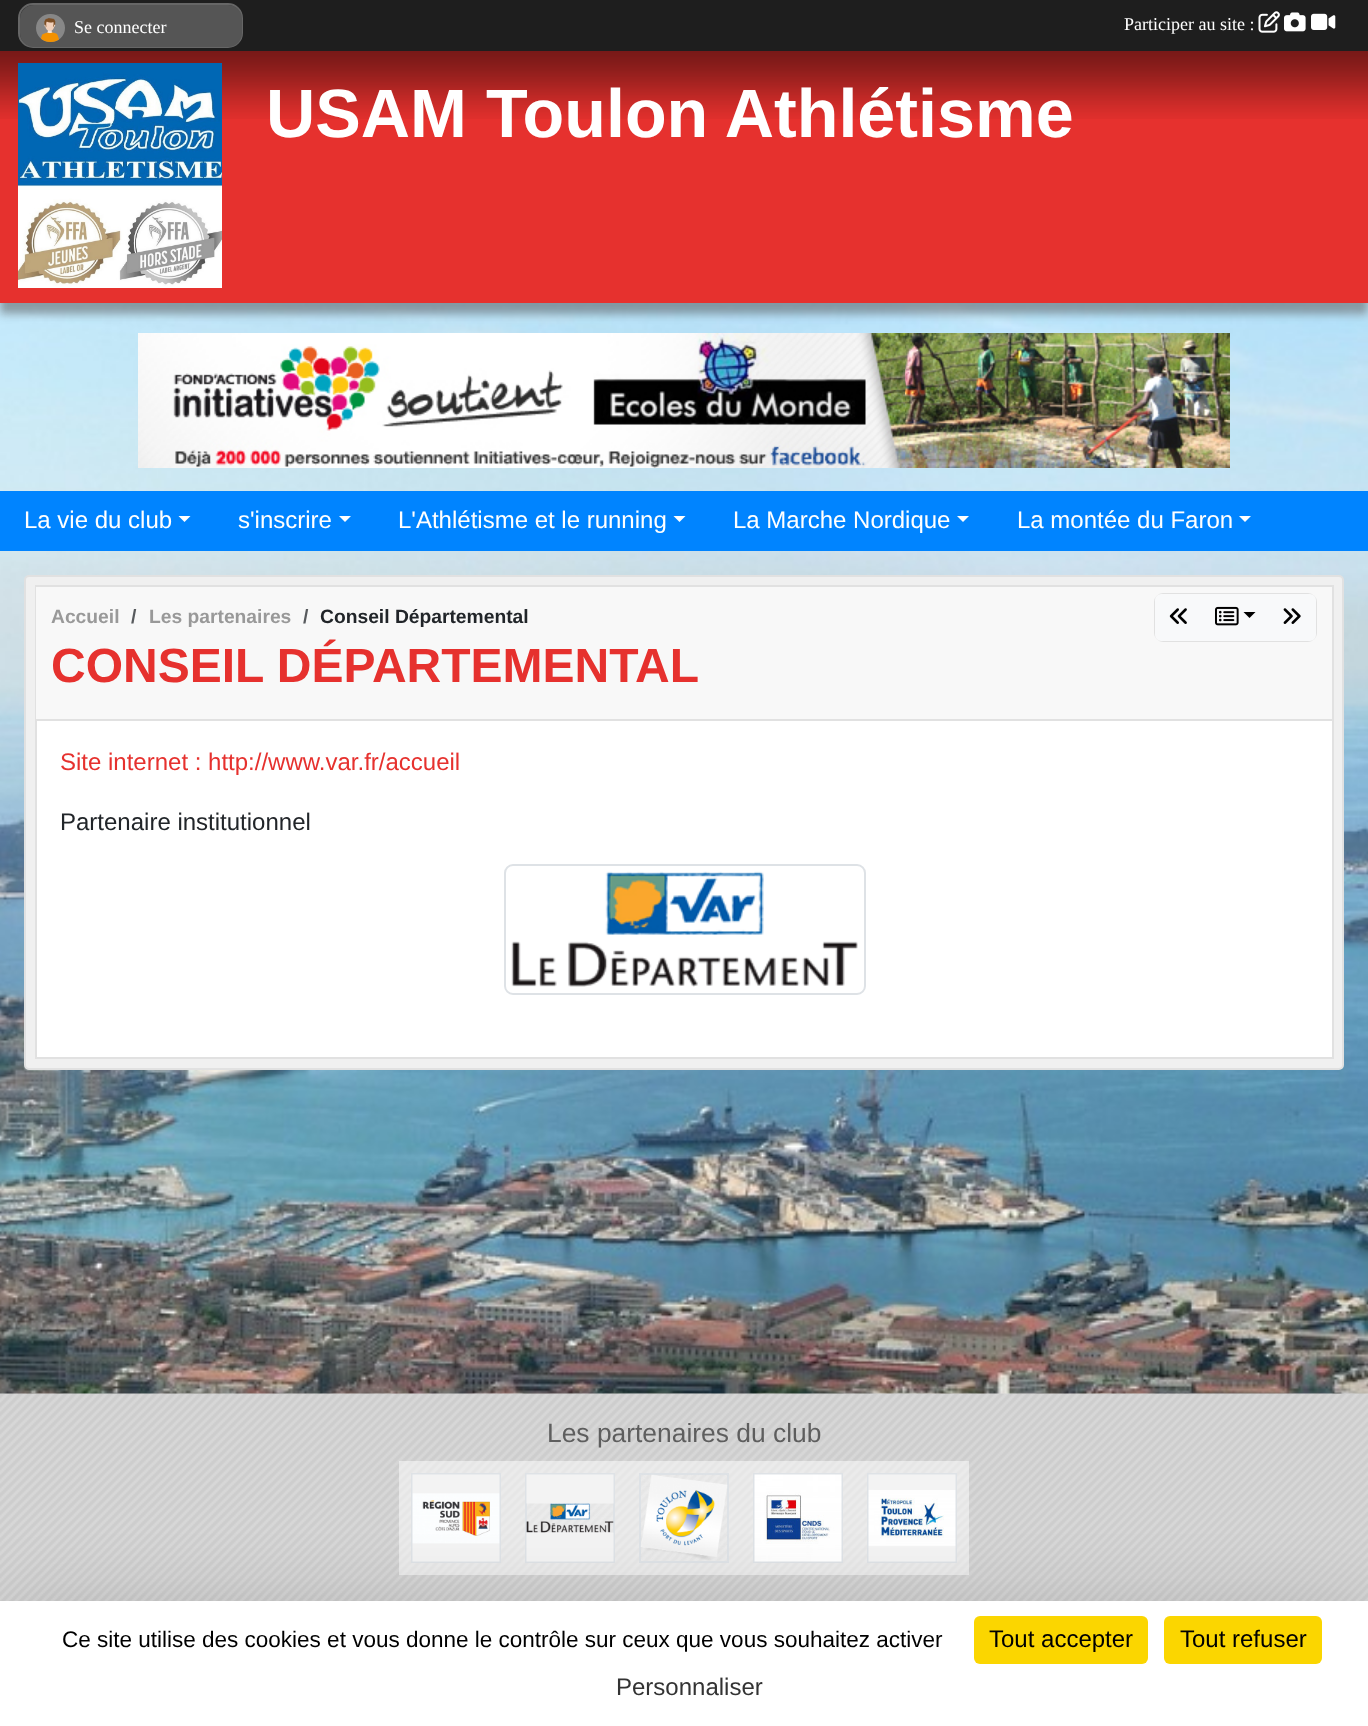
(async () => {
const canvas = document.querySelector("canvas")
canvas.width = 1368
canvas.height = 1726
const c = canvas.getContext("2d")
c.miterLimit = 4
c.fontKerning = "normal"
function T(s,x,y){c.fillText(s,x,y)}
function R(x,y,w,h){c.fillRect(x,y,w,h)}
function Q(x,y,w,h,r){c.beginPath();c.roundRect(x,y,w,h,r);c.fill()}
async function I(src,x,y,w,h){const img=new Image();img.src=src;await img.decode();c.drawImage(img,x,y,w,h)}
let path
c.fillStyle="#fff"
R(0,0,1368,1726)
await I("1.png",0,303,1368,1091)
c.fillStyle="#50505080"
c.filter="blur(4px)"
c.beginPath()
c.rect(0,59,1368,255)
c.fill()
c.filter="none"
c.fillStyle="#1e1e1e"
R(0,0,1368,51)
c.fillStyle="#333"
c.beginPath()
c.roundRect(19,4,223,43,14)
c.fill()
c.strokeStyle="#666"
c.lineWidth=2
c.stroke()
c.fillStyle="#555"
Q(20,5,222,42,14)
await I("2.png",36,14,29,28)
c.font="18px Liberation Serif"
c.fillStyle="#fff"
T("Se connecter",74,33)
T("Participer au site :",1124,30)
await I("3.png",1258,11,22,22)
await I("4.png",1284,12,22,20)
await I("5.png",1311,13,25,17)
c.fillStyle="#e6312e"
R(0,51,1368,252)
await I("6.png",0,51,1368,68)
await I("7.png",18,63,204,225)
c.font="bold 68.25px Liberation Sans"
c.fillStyle="#fff"
T("USAM Toulon Athlétisme",266,137)
await I("8.png",138,333,1092,135)
c.fillStyle="#0084ff"
R(0,491,1368,60)
c.font="24px Liberation Sans"
c.fillStyle="#fff"
T("La vie du club",24,528)
path = new Path2D("M178.5 516h12l-6 6z")
c.fill(path)
T("s'inscrire",238,528)
path = new Path2D("M339 516h12l-6 6z")
c.fill(path)
T("L'Athlétisme et le running",398,528)
path = new Path2D("M673.5 516h12l-6 6z")
c.fill(path)
T("La Marche Nordique",733,528)
path = new Path2D("M957 516h12l-6 6z")
c.fill(path)
T("La montée du Faron",1017,528)
path = new Path2D("M1239 516h12l-6 6z")
c.fill(path)
c.fillStyle="#f0f0f0"
c.beginPath()
c.roundRect(25,576,1318,493,4)
c.fill()
c.strokeStyle="#e1e1e1"
c.stroke()
c.fillStyle="#fff"
R(37,721,1295,336)
c.strokeRect(36,586,1297,472)
c.fillStyle="#f8f8f8"
R(36,587,1296,132)
c.fillStyle="#e1e1e1"
R(36,719,1296,2)
c.font="bold 19.25px Liberation Sans"
c.fillStyle="#999"
T("Accueil",51,623)
c.fillStyle="#575a5d"
T("/",131,623)
c.fillStyle="#999"
T("Les partenaires",149,623)
c.fillStyle="#575a5d"
T("/",303,623)
c.fillStyle="#212529"
T("Conseil Départemental",320,623)
c.beginPath()
c.roundRect(1155,594,161,47,8)
c.stroke()
c.fillStyle="#f8f9fa"
c.beginPath()
c.roundRect(1156,595,46,45,[5,0,0,5])
c.fill()
c.strokeStyle="#f8f9fa"
c.stroke()
await I("9.png",1169,608,18,16)
R(1203,594,65,47)
await I("10.png",1215,606,24,20)
c.fillStyle="#000"
path = new Path2D("M1243.5 612h12l-6 6z")
c.fill(path)
c.fillStyle="#f8f9fa"
c.beginPath()
c.roundRect(1269,595,46,45,[0,5,5,0])
c.fill()
c.stroke()
await I("11.png",1283,608,18,16)
c.font="bold 48px Liberation Sans"
c.fillStyle="#e6312e"
T("CONSEIL DÉPARTEMENTAL",51,682)
c.font="24px Liberation Sans"
T("Site internet : http://www.var.fr/accueil",60,770)
c.fillStyle="#212529"
T("Partenaire institutionnel",60,830)
c.beginPath()
c.roundRect(505,865,360,129,8)
c.strokeStyle="#dee2e6"
c.stroke()
await I("12.png",511,871,347,116)
await I("13.png",0,1393,1368,208)
c.font="26.4px Liberation Sans"
c.fillStyle="#5e5e5e"
T("Les partenaires du club",547,1442)
c.fillStyle="#ffffff80"
R(399,1461,114,114)
c.strokeRect(412,1474,88,88)
await I("14.png",412,1474,88,88)
R(513,1461,114,114)
c.strokeRect(526,1474,88,88)
await I("15.png",526,1474,88,88)
R(627,1461,114,114)
c.strokeRect(640,1474,88,88)
await I("16.png",640,1474,88,86)
R(741,1461,114,114)
c.strokeRect(754,1474,88,88)
await I("17.png",754,1474,88,88)
R(855,1461,114,114)
c.strokeRect(868,1474,88,88)
await I("18.png",868,1474,88,88)
c.fillStyle="#00000040"
c.filter="blur(45px)"
c.beginPath()
c.rect(0,1631,1368,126)
c.fill()
c.filter="none"
c.fillStyle="#fff"
R(0,1601,1368,125)
c.font="22.5px Liberation Sans"
c.fillStyle="#000"
T("Ce site utilise des cookies et vous donne le contrôle sur ceux que vous souhaitez activer",62,1647)
c.fillStyle="#fbd600"
Q(974,1616,174,48,6)
c.font="24px Liberation Sans"
c.fillStyle="#000"
T("Tout accepter",989,1647)
c.fillStyle="#fbd600"
Q(1164,1616,158,48,6)
c.fillStyle="#000"
T("Tout refuser",1180,1647)
c.fillStyle="#333"
T("Personnaliser",616,1695)
})()
